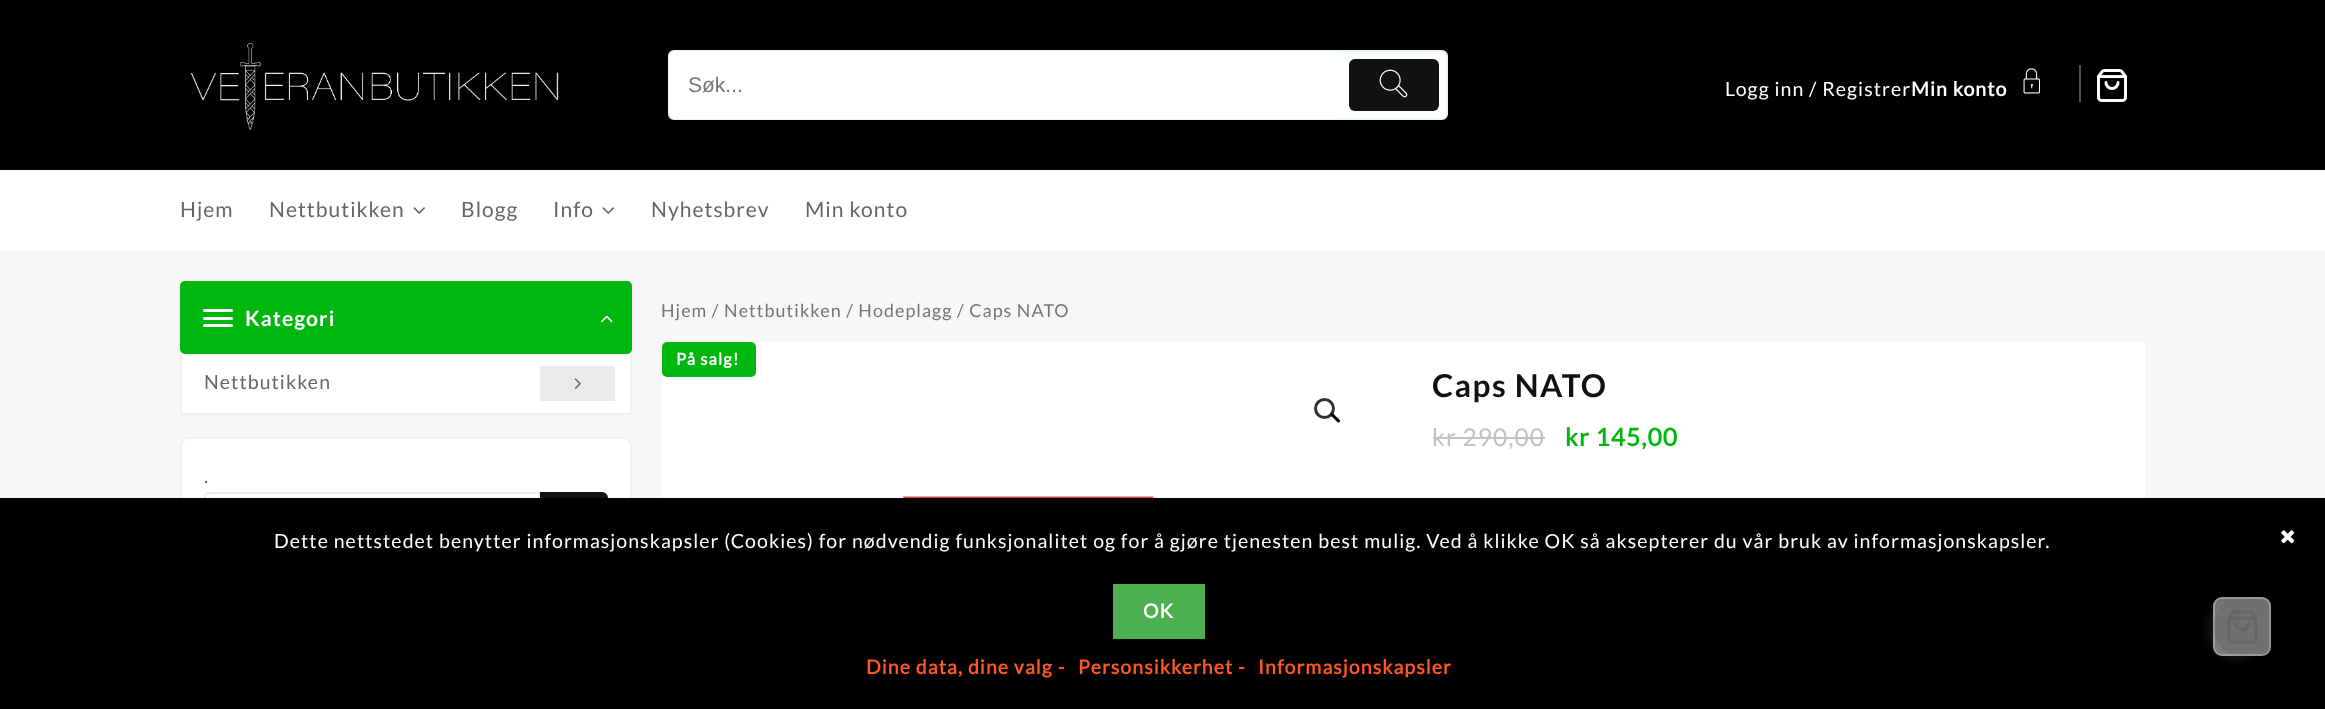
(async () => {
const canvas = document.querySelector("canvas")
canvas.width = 2325
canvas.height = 709
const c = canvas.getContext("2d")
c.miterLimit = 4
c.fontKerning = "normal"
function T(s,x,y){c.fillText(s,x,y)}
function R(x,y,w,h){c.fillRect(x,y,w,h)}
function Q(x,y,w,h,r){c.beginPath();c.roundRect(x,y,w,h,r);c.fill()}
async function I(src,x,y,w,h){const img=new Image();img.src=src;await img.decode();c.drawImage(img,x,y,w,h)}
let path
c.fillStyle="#f7f7f7"
R(0,0,2325,709)
c.fillStyle="#000"
R(0,0,2325,170)
await I("1.png",190,43,369,87)
c.fillStyle="#fff"
c.beginPath()
c.roundRect(669,51,778,68,5)
c.fill()
c.strokeStyle="#e7f5ff"
c.lineWidth=2
c.stroke()
Q(669,51,672,68,6)
c.font="21px Liberation Sans"
c.fillStyle="#757575"
T("Søk...",688,92)
c.fillStyle="#111"
Q(1349,59,90,52,6)
await I("2.png",1379,69,29,29)
c.letterSpacing="1.05px"
c.font="19.5px Lato"
c.fillStyle="#fff"
T("Logg inn / Registrer",1725,96)
c.font="bold 19.5px Lato"
T("Min konto",1911,96)
await I("3.png",2023,68,18,26)
c.fillStyle="#525252"
R(2079,65,2,37)
await I("4.png",2097,69,30,33)
c.fillStyle="#fff"
R(0,170,2325,81)
c.font="21px Lato"
c.fillStyle="#666"
T("Hjem",180,217)
T("Nettbutikken",269,217)
await I("5.png",413,207,12,7)
T("Blogg",461,217)
T("Info",553,217)
await I("5.png",602,207,12,7)
T("Nyhetsbrev",651,217)
T("Min konto",805,217)
c.fillStyle="#00b70f"
Q(180,281,452,73,5)
c.fillStyle="#fff"
Q(203,309,30,3,1.5)
Q(203,317,30,3,1.5)
Q(203,324,30,3,1.5)
c.font="bold 21px 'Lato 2'"
T("Kategori",245,326)
await I("6.png",600,315,13,8)
R(182,354,448,59)
c.fillStyle="#f1f1f1"
R(630,354,2,60)
R(180,413,452,2)
R(180,354,2,60)
c.font="19.5px Lato"
c.fillStyle="#666"
T("Nettbutikken",204,389)
c.fillStyle="#eaeaea"
R(540,366,75,35)
await I("7.png",574,378,7,12)
c.fillStyle="#fff"
c.beginPath()
c.roundRect(181,438,450,125,8)
c.fill()
c.strokeStyle="#f1f1f1"
c.stroke()
c.fillStyle="#666"
T(".",204,483)
c.beginPath()
c.roundRect(205,493,334,46,[4,0,0,4])
c.strokeStyle="#eaeaea"
c.stroke()
c.fillStyle="#141415"
c.beginPath()
c.roundRect(541,493,66,46,[0,5,5,0])
c.fill()
c.strokeStyle="#141415"
c.stroke()
c.font="17.9px Lato"
c.fillStyle="#757575"
T("Hjem / Nettbutikken / Hodeplagg / Caps NATO",661,317)
c.fillStyle="#fff"
R(662,342,1483,156)
c.fillStyle="#00b70f"
Q(662,342,94,35,5)
c.font="bold 16.5px Lato"
c.fillStyle="#fff"
T("På salg!",676,365)
c.fillStyle="#000"
path = new Path2D("M1331 413.5c2-1.5 4.5 2.5 5.5 3.5c1 .5 5 3.5 3 5c-1.5 2-4-2-5-3c-1-1-5-3.5-3.5-5.5z")
c.fill(path)
c.beginPath()
c.arc(1324.5,408.5,9,0,7)
c.strokeStyle="#000000cc"
c.lineWidth=3
c.stroke()
await I("8.png",902,496,252,2)
c.letterSpacing="1.5px"
c.font="bold 31.5px 'Lato 2'"
c.fillStyle="#111"
T("Caps NATO",1432,397)
c.letterSpacing="1.05px"
c.font="24.5px Lato"
c.fillStyle="#c1c1c1"
T("kr 290,00",1432,446)
R(1433,437,112,2)
c.font="bold 24.5px Lato"
c.fillStyle="#00b70f"
T("kr 145,00",1565,446)
c.fillStyle="#000"
R(0,498,2325,211)
c.font="19.5px Lato"
c.fillStyle="#fff"
T("Dette nettstedet benytter informasjonskapsler (Cookies) for nødvendig funksjonalitet og for å gjøre tjenesten best mulig. Ved å klikke OK så aksepterer du vår bruk av informasjonskapsler.",274,548)
await I("9.png",2281,530,14,14)
c.fillStyle="#4caf50"
R(1113,584,92,55)
c.font="bold 19.5px Lato"
c.fillStyle="#fff"
T("OK",1143,618)
c.fillStyle="#ff5722"
T("Dine data, dine valg -",866,674)
T("Personsikkerhet -",1078,674)
T("Informasjonskapsler",1258,674)
c.save()
path = new Path2D("M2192 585h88v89h-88zm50 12c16 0 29 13 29 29v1c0 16-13 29-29 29c-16 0-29-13-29-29v-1c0-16 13-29 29-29z")
c.clip(path,"evenodd")
c.fillStyle="#dddddd1a"
c.filter="blur(4.5px)"
c.beginPath()
c.roundRect(2207,600,58,59,29)
c.fill()
c.filter="none"
c.restore()
c.fillStyle="#ffffff70"
Q(2213,597,58,59,9)
c.beginPath()
c.roundRect(2214,598,56,57,8)
c.strokeStyle="#ffffff45"
c.lineWidth=2
c.stroke()
await I("10.png",2227,610,31,34)
})()
